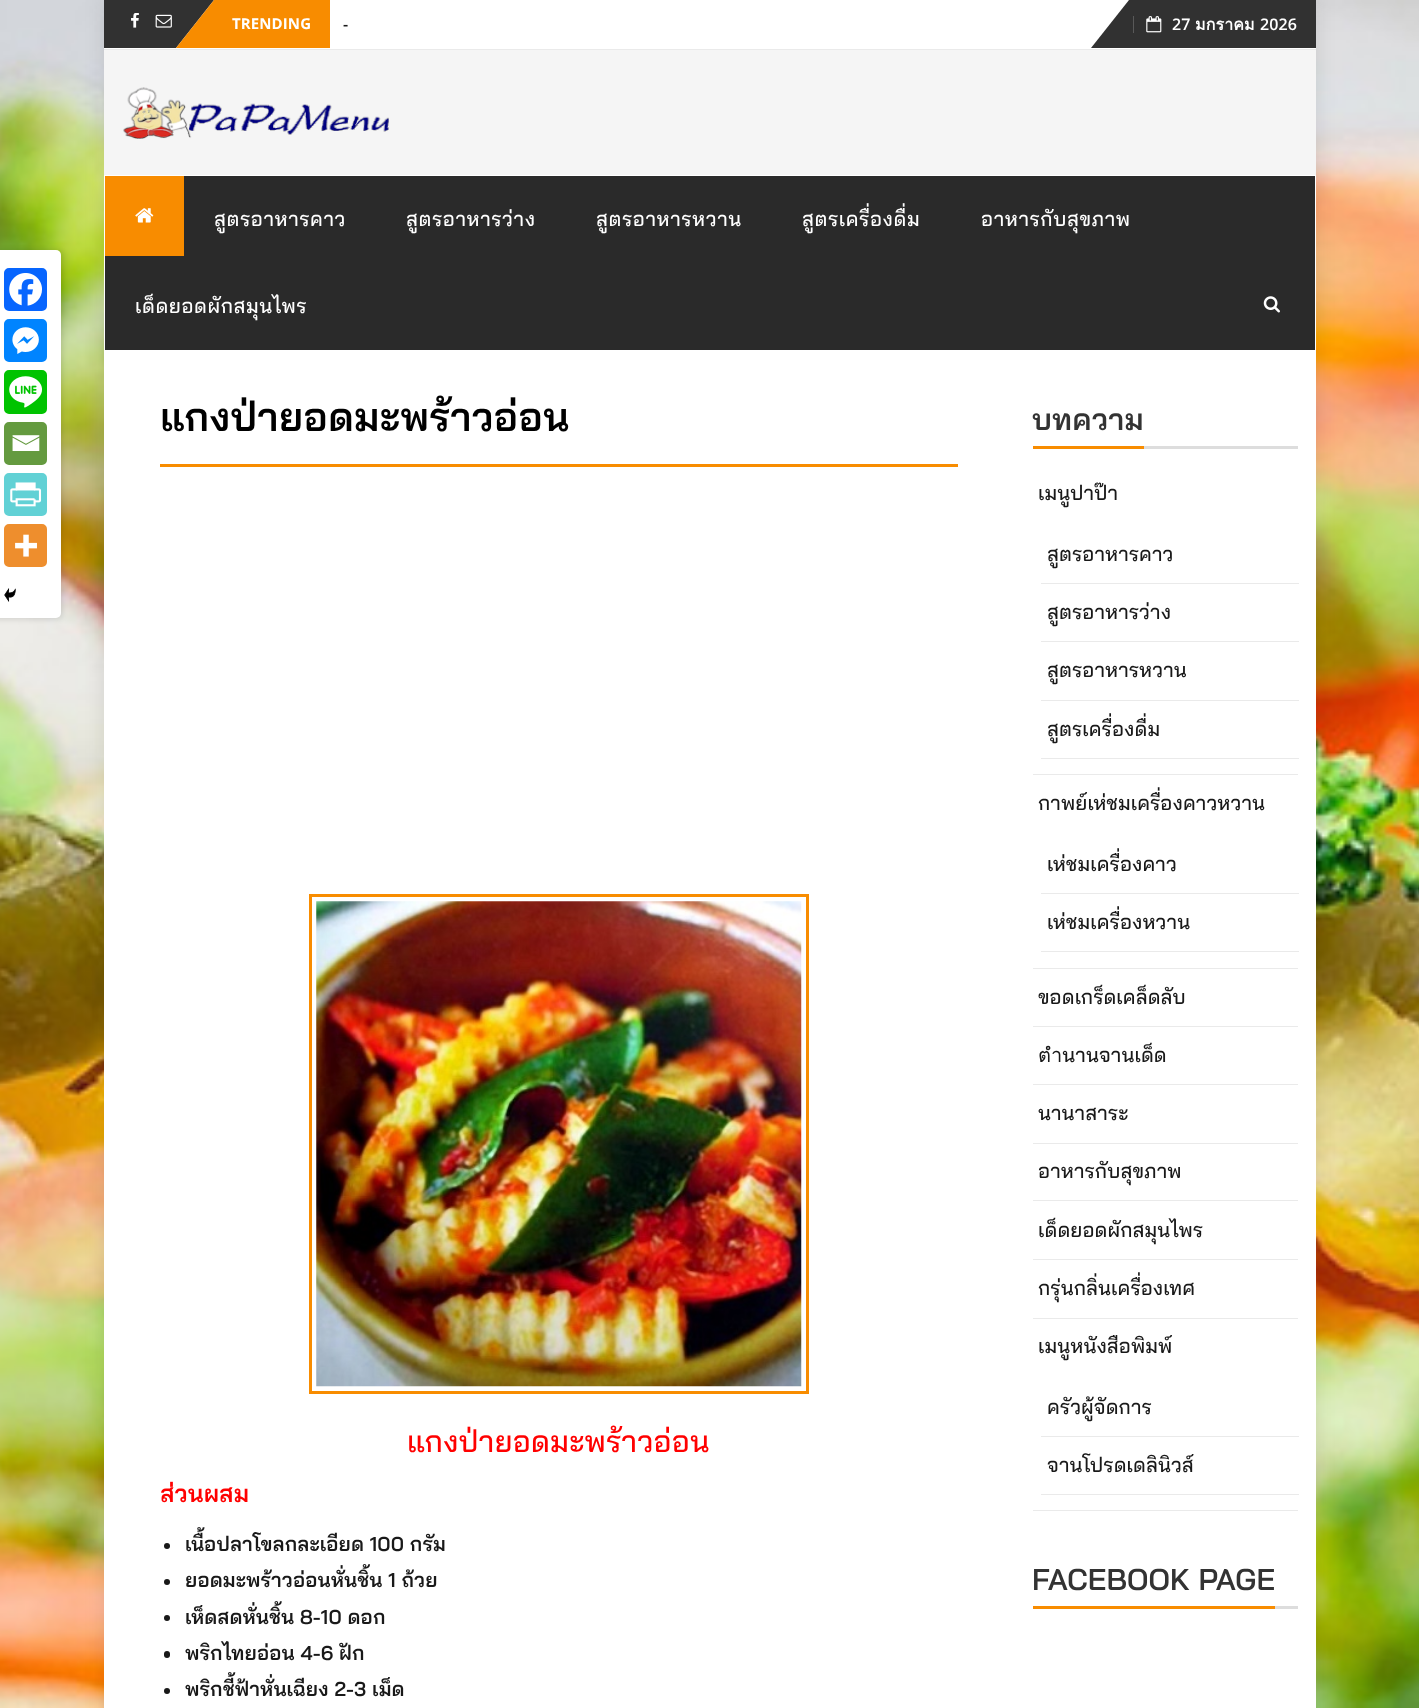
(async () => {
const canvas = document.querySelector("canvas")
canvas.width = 1419
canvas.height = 1708
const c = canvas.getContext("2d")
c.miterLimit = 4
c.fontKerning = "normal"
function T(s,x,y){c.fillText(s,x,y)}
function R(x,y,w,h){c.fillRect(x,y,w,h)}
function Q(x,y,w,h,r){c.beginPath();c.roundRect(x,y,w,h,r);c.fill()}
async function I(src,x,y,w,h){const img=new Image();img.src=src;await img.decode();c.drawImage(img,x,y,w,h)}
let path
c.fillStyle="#fff"
R(0,0,1419,1708)
await I("1.png",0,0,1419,1708)
c.fillStyle="#0000001a"
c.filter="blur(9.5px)"
c.beginPath()
c.rect(104,0,1212,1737)
c.fill()
c.filter="none"
c.fillStyle="#fff"
R(104,0,1212,1708)
c.fillStyle="#eaeaea"
R(104,49,1212,1)
c.fillStyle="#313131"
path = new Path2D("M104 0h110l-38 48h-72z")
c.fill(path)
await I("2.png",131,13,8,15)
await I("3.png",155,14,17,14)
c.fillStyle="#f88c00"
path = new Path2D("M330 48h-154l38-48h116z")
c.fill(path)
c.letterSpacing="0.1px"
c.font="bold 15px Open Sans"
c.fillStyle="#fff"
T("TRENDING",232,29)
c.font="600 16px Open Sans"
c.fillStyle="#191919"
T("-",343,30)
c.fillStyle="#313131"
path = new Path2D("M1316 48h-225l38-48h187z")
c.fill(path)
c.fillStyle="#595959"
R(1133,16,1,17)
await I("4.png",1146,16,16,17)
c.fillStyle="#fff"
T("27",1172,30)
c.font="bold 16px Loma"
T("มกราคม",1195,30)
c.font="600 16px Open Sans"
T("2026",1260,30)
c.fillStyle="#f5f5f5"
R(104,50,1212,125)
await I("5.png",123,87,266,52)
c.fillStyle="#2a2a2a"
R(105,176,1210,174)
c.fillStyle="#f88c00"
R(105,176,79,80)
await I("6.png",135,208,19,15)
c.letterSpacing="0.6px"
c.font="500 20px Bai Jamjuree"
c.fillStyle="#fff"
T("สูตรอาหารคาว",214,226)
T("สูตรอาหารว่าง",406,226)
T("สูตรอาหารหวาน",596,226)
T("สูตรเครื่องดื่ม",802,226)
T("อาหารกับสุขภาพ",981,226)
T("เด็ดยอดผักสมุนไพร",135,313)
await I("7.png",1263,296,17,17)
c.fillStyle="#f88c00"
R(160,464,798,3)
c.letterSpacing="0.1px"
c.font="600 40px Bai Jamjuree"
c.fillStyle="#000"
T("แกงป่ายอดมะพร้าวอ่อน",160,431)
c.fillStyle="#0000001a"
c.filter="blur(2.5px)"
c.beginPath()
c.roundRect(-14,250,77,370,6)
c.fill()
c.filter="none"
c.fillStyle="#fff"
Q(-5,250,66,368,5)
c.fillStyle="#0765fe"
c.beginPath()
c.roundRect(2,266,47,47,7)
c.fill()
c.strokeStyle="#fff"
c.lineWidth=4
c.stroke()
await I("8.png",9,273,33,33)
c.fillStyle="#0084ff"
c.beginPath()
c.roundRect(2,317,47,47,7)
c.fill()
c.stroke()
await I("9.png",12,327,27,27)
c.fillStyle="#00c300"
c.beginPath()
c.roundRect(2,368,47,48,7)
c.fill()
c.stroke()
await I("10.png",9,376,33,32)
c.fillStyle="#649a3f"
c.beginPath()
c.roundRect(2,420,47,47,7)
c.fill()
c.stroke()
await I("11.png",12,435,28,16)
c.fillStyle="#61d1d5"
c.beginPath()
c.roundRect(2,471,47,47,7)
c.fill()
c.stroke()
await I("12.png",10,482,32,25)
c.fillStyle="#ee8e2d"
c.beginPath()
c.roundRect(2,522,47,47,7)
c.fill()
c.stroke()
await I("13.png",15,534,22,23)
await I("14.png",4,588,12,14)
c.strokeStyle="#f88c00"
c.lineWidth=3
c.strokeRect(310.5,895.5,497,497)
await I("15.png",316,901,486,486)
c.font="500 30px Bai Jamjuree"
c.fillStyle="#f00"
T("แกงป่ายอดมะพร้าวอ่อน",407,1452)
c.font="600 24px Bai Jamjuree"
T("ส่วนผสม",160,1502)
c.fillStyle="#181818"
c.beginPath()
c.arc(167,1546,3,0,7)
c.fill()
c.font="600 20px Bai Jamjuree"
c.fillStyle="#191919"
T("เนื้อปลาโขลกละเอียด 100 กรัม",185,1551)
c.fillStyle="#181818"
c.beginPath()
c.arc(167,1582,3,0,7)
c.fill()
c.fillStyle="#191919"
T("ยอดมะพร้าวอ่อนหั่นชิ้น 1 ถ้วย",185,1587)
c.fillStyle="#181818"
c.beginPath()
c.arc(167,1618,3,0,7)
c.fill()
c.fillStyle="#191919"
T("เห็ดสดหั่นชิ้น 8-10 ดอก",185,1624)
c.fillStyle="#181818"
Q(164,1651,6,7,3)
c.fillStyle="#191919"
T("พริกไทยอ่อน 4-6 ฝัก",185,1660)
c.fillStyle="#181818"
c.beginPath()
c.arc(167,1691,3,0,7)
c.fill()
c.fillStyle="#191919"
T("พริกชี้ฟ้าหั่นเฉียง 2-3 เม็ด",185,1696)
c.font="600 30px Bai Jamjuree"
c.fillStyle="#333"
T("บทความ",1032,430)
c.fillStyle="#f88c00"
R(1033,446,111,3)
c.fillStyle="#ddd"
R(1144,446,154,3)
c.fillStyle="#eaeaea"
R(1033,774,265,1)
c.font="500 20px Bai Jamjuree"
c.fillStyle="#191919"
T("เมนูปาป๊า",1038,500)
c.fillStyle="#eaeaea"
R(1041,583,258,1)
c.fillStyle="#191919"
T("สูตรอาหารคาว",1047,561)
c.fillStyle="#eaeaea"
R(1041,641,258,1)
c.fillStyle="#191919"
T("สูตรอาหารว่าง",1047,619)
c.fillStyle="#eaeaea"
R(1041,700,258,1)
c.fillStyle="#191919"
T("สูตรอาหารหวาน",1047,677)
c.fillStyle="#eaeaea"
R(1041,758,258,1)
c.fillStyle="#191919"
T("สูตรเครื่องดื่ม",1047,736)
c.fillStyle="#eaeaea"
R(1033,968,265,1)
c.fillStyle="#191919"
T("กาพย์เห่ชมเครื่องคาวหวาน",1038,810)
c.fillStyle="#eaeaea"
R(1041,893,258,1)
c.fillStyle="#191919"
T("เห่ชมเครื่องคาว",1047,871)
c.fillStyle="#eaeaea"
R(1041,951,258,1)
c.fillStyle="#191919"
T("เห่ชมเครื่องหวาน",1047,929)
c.fillStyle="#eaeaea"
R(1033,1026,265,1)
c.fillStyle="#191919"
T("ขอดเกร็ดเคล็ดลับ",1038,1004)
c.fillStyle="#eaeaea"
R(1033,1084,265,1)
c.fillStyle="#191919"
T("ตำนานจานเด็ด",1038,1062)
c.fillStyle="#eaeaea"
R(1033,1143,265,1)
c.fillStyle="#191919"
T("นานาสาระ",1038,1120)
c.fillStyle="#eaeaea"
R(1033,1200,265,1)
c.fillStyle="#191919"
T("อาหารกับสุขภาพ",1038,1178)
c.fillStyle="#eaeaea"
R(1033,1259,265,1)
c.fillStyle="#191919"
T("เด็ดยอดผักสมุนไพร",1038,1237)
c.fillStyle="#eaeaea"
R(1033,1318,265,1)
c.fillStyle="#191919"
T("กรุ่นกลิ่นเครื่องเทศ",1038,1295)
c.fillStyle="#eaeaea"
R(1033,1510,265,1)
c.fillStyle="#191919"
T("เมนูหนังสือพิมพ์",1038,1353)
c.fillStyle="#eaeaea"
R(1041,1436,258,1)
c.fillStyle="#191919"
T("ครัวผู้จัดการ",1047,1414)
c.fillStyle="#eaeaea"
R(1041,1494,258,1)
c.fillStyle="#191919"
T("จานโปรดเดลินิวส์",1047,1472)
c.font="600 30px Bai Jamjuree"
c.fillStyle="#333"
T("FACEBOOK PAGE",1032,1590)
c.fillStyle="#f88c00"
R(1033,1606,242,3)
c.fillStyle="#ddd"
R(1275,1606,23,3)
})()
